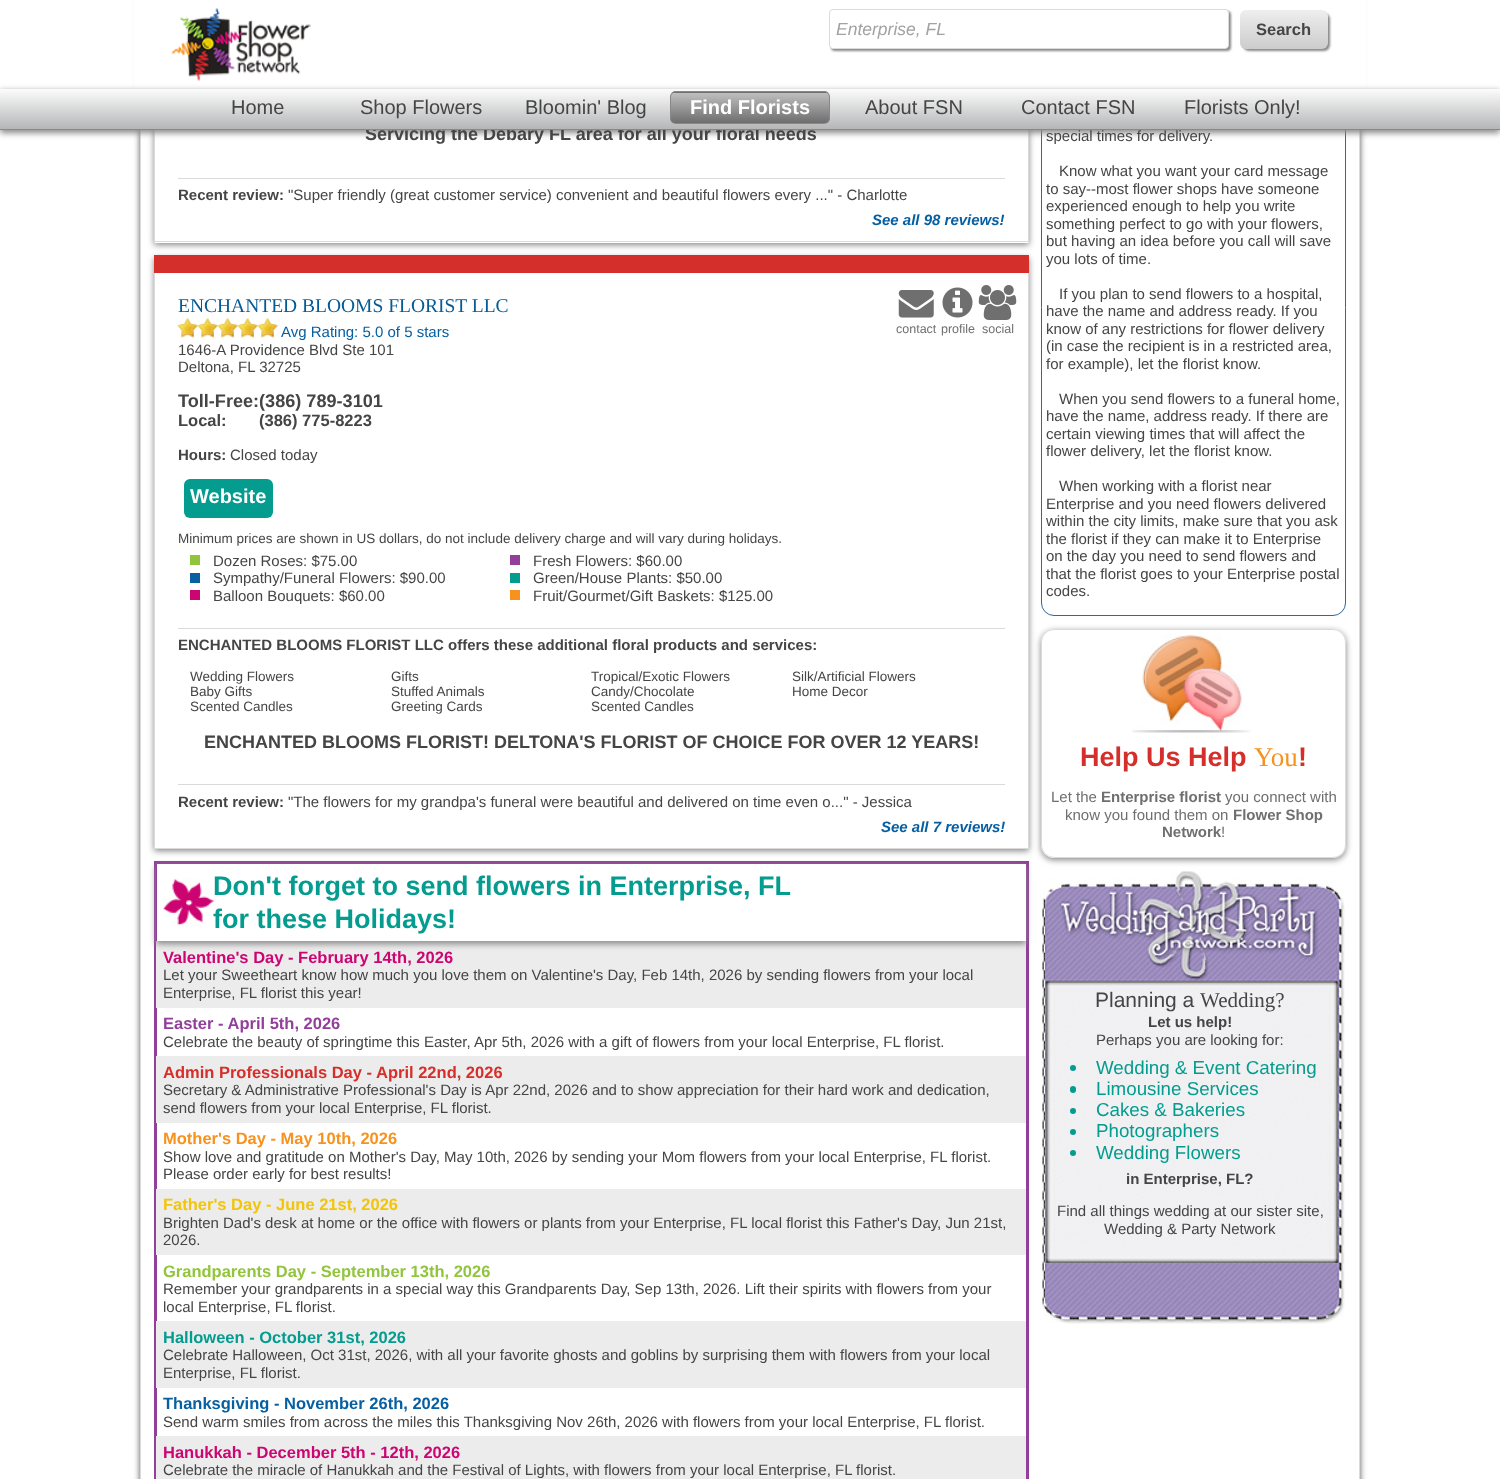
(async () => {
const canvas = document.querySelector("canvas")
canvas.width = 1500
canvas.height = 1479
const c = canvas.getContext("2d")
c.miterLimit = 4
c.fontKerning = "normal"
function T(s,x,y){c.fillText(s,x,y)}
function R(x,y,w,h){c.fillRect(x,y,w,h)}
function Q(x,y,w,h,r){c.beginPath();c.roundRect(x,y,w,h,r);c.fill()}
async function I(src,x,y,w,h){const img=new Image();img.src=src;await img.decode();c.drawImage(img,x,y,w,h)}
let gradient, path
c.fillStyle="#fff"
R(0,0,1500,1479)
c.save()
path = new Path2D("M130 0h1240v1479h-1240zm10-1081h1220v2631h-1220z")
c.clip(path,"evenodd")
c.fillStyle="#535353"
c.filter="blur(3px)"
c.beginPath()
c.rect(140,-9,1220,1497)
c.fill()
c.filter="none"
c.restore()
c.save()
path = new Path2D("M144 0h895v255h-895zm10-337h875v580h-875z")
c.clip(path,"evenodd")
c.fillStyle="#888"
c.filter="blur(3px)"
c.beginPath()
c.rect(154,-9,875,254)
c.fill()
c.filter="none"
c.restore()
c.beginPath()
c.roundRect(1041.5,-.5,304,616,12.5)
c.strokeStyle="#369"
c.stroke()
R(134,0,1232,89)
c.fillStyle="#dadada"
R(1359,130,1,1349)
R(140,130,1,1349)
R(1028,130,1,113)
R(154,241,875,1)
R(154,130,1,113)
c.fillStyle="#888"
c.filter="blur(3px)"
c.beginPath()
c.rect(0,91,1500,42)
c.fill()
c.filter="none"
await I("1.png",171,8,140,74)
c.filter="blur(1px)"
c.beginPath()
c.roundRect(831,11,400,40,4)
c.fill()
c.filter="none"
c.fillStyle="#fff"
c.beginPath()
c.roundRect(829.5,9.5,399,39,3.5)
c.fill()
c.strokeStyle="#dbdbdb"
c.stroke()
c.font="italic 17.5px Liberation Sans"
c.fillStyle="#a2a2a2"
T("Enterprise, FL",836,35)
c.fillStyle="#888"
c.filter="blur(1px)"
c.beginPath()
c.roundRect(1243,13,87,38,6)
c.fill()
c.filter="none"
gradient = c.createLinearGradient(1284,10,1284,49)
gradient.addColorStop(0,"#eee")
gradient.addColorStop(1,"#ccc")
c.fillStyle = gradient
Q(1240,10,88,39,6)
c.font="bold 16.5px Liberation Sans"
c.fillStyle="#454545"
T("Search",1256,35)
c.font="bold 18px Liberation Sans"
T("Servicing the Debary FL area for all your floral needs",365,140)
gradient = c.createLinearGradient(750,89,750,129)
gradient.addColorStop(0,"#fcfcfc")
gradient.addColorStop(1,"#b5b6b8")
c.fillStyle = gradient
R(0,89,1500,40)
c.fillStyle="#888"
R(0,129,1500,1)
c.font="20px Liberation Sans"
c.fillStyle="#454545"
T("Home",231,114)
T("Shop Flowers",360,114)
T("Bloomin' Blog",525,114)
c.save()
c.beginPath()
c.roundRect(670,91,160,33,6)
c.clip()
gradient = c.createLinearGradient(750,62,750,93)
gradient.addColorStop(0,"#bfbfbf")
gradient.addColorStop(1,"#6d6d6d")
c.fillStyle = gradient
R(670,91,160,2)
gradient = c.createLinearGradient(750,93,750,123)
gradient.addColorStop(0,"#bfbfbf")
gradient.addColorStop(1,"#6d6d6d")
c.fillStyle = gradient
R(670,93,160,30)
c.restore()
c.beginPath()
c.roundRect(670.5,91.5,159,32,5.5)
c.strokeStyle="#888"
c.stroke()
c.font="bold 20px Liberation Sans"
c.fillStyle="#fff"
T("Find Florists",690,114)
c.font="20px Liberation Sans"
c.fillStyle="#454545"
T("About FSN",865,114)
T("Contact FSN",1021,114)
T("Florists Only!",1184,114)
c.fillStyle="#dadada"
R(178,178,827,1)
c.font="bold 15px Liberation Sans"
c.fillStyle="#454545"
T("Recent review:",178,200)
c.font="15px Liberation Sans"
T("\"Super friendly (great customer service) convenient and beautiful flowers every ...\" - Charlotte",288,200)
c.font="italic bold 15px Liberation Sans"
c.fillStyle="#065fa1"
T("See all 98 reviews!",872,225)
c.save()
path = new Path2D("M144 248h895v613h-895zm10 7h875v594h-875z")
c.clip(path,"evenodd")
c.fillStyle="#888"
c.filter="blur(3px)"
c.beginPath()
c.rect(154,258,875,593)
c.fill()
c.filter="none"
c.restore()
c.fillStyle="#d42f2b"
R(154,255,875,18)
c.fillStyle="#dadada"
R(1028,273,1,576)
R(154,848,875,1)
R(154,273,1,576)
c.font="19.5px Liberation Serif"
c.fillStyle="#055b96"
T("ENCHANTED BLOOMS FLORIST LLC",178,312)
await I("2.png",177,317,21,21)
await I("3.png",197,317,21,21)
await I("3.png",217,317,21,21)
await I("3.png",237,317,21,21)
await I("3.png",257,317,21,21)
c.font="15px Liberation Sans"
c.fillStyle="#065fa1"
T("Avg Rating: 5.0 of 5 stars",281,337)
await I("4.png",898,290,36,28)
c.font="12.5px Liberation Sans"
c.fillStyle="#6f6f6f"
T("contact",896,333)
await I("5.png",942,287,31,31)
T("profile",941,333)
await I("6.png",978,285,39,35)
T("social",982,333)
c.font="15px Liberation Sans"
c.fillStyle="#454545"
T("1646-A Providence Blvd Ste 101",178,355)
T("Deltona, FL 32725",178,372)
c.font="bold 18.1px Liberation Sans"
T("Toll-Free:(386) 789-3101",178,407)
c.font="bold 16.5px Liberation Sans"
T("Local:",178,426)
T("(386) 775-8223",259,426)
c.font="bold 15px Liberation Sans"
T("Hours:",178,460)
c.font="15px Liberation Sans"
T("Closed today",230,460)
c.fillStyle="#049c8f"
Q(184,479,89,39,6)
c.font="bold 20px Liberation Sans"
c.fillStyle="#fff"
T("Website",190,503)
c.font="13.5px Liberation Sans"
c.fillStyle="#454545"
T("Minimum prices are shown in US dollars, do not include delivery charge and will vary during holidays.",178,543)
c.fillStyle="#91c53d"
R(190,555,10,10)
c.font="15px Liberation Sans"
c.fillStyle="#454545"
T("Dozen Roses: $75.00",213,566)
c.fillStyle="#923f9b"
R(510,555,10,10)
c.fillStyle="#454545"
T("Fresh Flowers: $60.00",533,566)
c.fillStyle="#065fa1"
R(190,573,10,10)
c.fillStyle="#454545"
T("Sympathy/Funeral Flowers: $90.00",213,583)
c.fillStyle="#049c8f"
R(510,573,10,10)
c.fillStyle="#454545"
T("Green/House Plants: $50.00",533,583)
c.fillStyle="#cd0572"
R(190,590,10,10)
c.fillStyle="#454545"
T("Balloon Bouquets: $60.00",213,601)
c.fillStyle="#f7921e"
R(510,590,10,10)
c.fillStyle="#454545"
T("Fruit/Gourmet/Gift Baskets: $125.00",533,601)
c.fillStyle="#dadada"
R(178,628,827,1)
c.font="bold 15px Liberation Sans"
c.fillStyle="#454545"
T("ENCHANTED BLOOMS FLORIST LLC offers these additional floral products and services:",178,650)
c.font="13.5px Liberation Sans"
T("Wedding Flowers",190,681)
T("Gifts",391,681)
T("Tropical/Exotic Flowers",591,681)
T("Silk/Artificial Flowers",792,681)
T("Baby Gifts",190,696)
T("Stuffed Animals",391,696)
T("Candy/Chocolate",591,696)
T("Home Decor",792,696)
T("Scented Candles",190,711)
T("Greeting Cards",391,711)
T("Scented Candles",591,711)
c.font="bold 18px Liberation Sans"
T("ENCHANTED BLOOMS FLORIST! DELTONA'S FLORIST OF CHOICE FOR OVER 12 YEARS!",204,748)
c.fillStyle="#dadada"
R(178,784,827,1)
c.font="bold 15px Liberation Sans"
c.fillStyle="#454545"
T("Recent review:",178,807)
c.font="15px Liberation Sans"
T("\"The flowers for my grandpa's funeral were beautiful and delivered on time even o...\" - Jessica",288,807)
c.font="italic bold 15px Liberation Sans"
c.fillStyle="#065fa1"
T("See all 7 reviews!",881,832)
c.strokeStyle="#923f9b"
c.lineWidth=3
c.strokeRect(155.5,862.5,872,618)
c.fillStyle="#ececec"
R(156,941,870,67)
c.save()
path = new Path2D("M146 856h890v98h-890zm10 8h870v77h-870z")
c.clip(path,"evenodd")
c.fillStyle="#888"
c.filter="blur(3px)"
c.beginPath()
c.rect(156,866,870,78)
c.fill()
c.filter="none"
c.restore()
await I("7.png",163,878,51,49)
c.font="bold 27px Liberation Sans"
c.fillStyle="#049c8f"
T("Don't forget to send flowers in Enterprise, FL",213,895)
T("for these Holidays!",213,928)
c.font="bold 16.5px Liberation Sans"
c.fillStyle="#cd0572"
T("Valentine's Day - February 14th, 2026",163,963)
c.font="15px Liberation Sans"
c.fillStyle="#454545"
T("Let your Sweetheart know how much you love them on Valentine's Day, Feb 14th, 2026 by sending flowers from your local",163,980)
T("Enterprise, FL florist this year!",163,998)
c.font="bold 16.5px Liberation Sans"
c.fillStyle="#923f9b"
T("Easter - April 5th, 2026",163,1029)
c.font="15px Liberation Sans"
c.fillStyle="#454545"
T("Celebrate the beauty of springtime this Easter, Apr 5th, 2026 with a gift of flowers from your local Enterprise, FL florist.",163,1047)
c.fillStyle="#ececec"
R(156,1056,870,67)
c.font="bold 16.5px Liberation Sans"
c.fillStyle="#d42f2b"
T("Admin Professionals Day - April 22nd, 2026",163,1078)
c.font="15px Liberation Sans"
c.fillStyle="#454545"
T("Secretary & Administrative Professional's Day is Apr 22nd, 2026 and to show appreciation for their hard work and dedication,",163,1095)
T("send flowers from your local Enterprise, FL florist.",163,1113)
c.font="bold 16.5px Liberation Sans"
c.fillStyle="#f7921e"
T("Mother's Day - May 10th, 2026",163,1144)
c.font="15px Liberation Sans"
c.fillStyle="#454545"
T("Show love and gratitude on Mother's Day, May 10th, 2026 by sending your Mom flowers from your local Enterprise, FL florist.",163,1162)
T("Please order early for best results!",163,1179)
c.fillStyle="#ececec"
R(156,1189,870,66)
c.font="bold 16.5px Liberation Sans"
c.fillStyle="#f2c508"
T("Father's Day - June 21st, 2026",163,1210)
c.font="15px Liberation Sans"
c.fillStyle="#454545"
T("Brighten Dad's desk at home or the office with flowers or plants from your Enterprise, FL local florist this Father's Day, Jun 21st,",163,1228)
T("2026.",163,1245)
c.font="bold 16.5px Liberation Sans"
c.fillStyle="#91c53d"
T("Grandparents Day - September 13th, 2026",163,1277)
c.font="15px Liberation Sans"
c.fillStyle="#454545"
T("Remember your grandparents in a special way this Grandparents Day, Sep 13th, 2026. Lift their spirits with flowers from your",163,1294)
T("local Enterprise, FL florist.",163,1312)
c.fillStyle="#ececec"
R(156,1321,870,67)
c.font="bold 16.5px Liberation Sans"
c.fillStyle="#049c8f"
T("Halloween - October 31st, 2026",163,1343)
c.font="15px Liberation Sans"
c.fillStyle="#454545"
T("Celebrate Halloween, Oct 31st, 2026, with all your favorite ghosts and goblins by surprising them with flowers from your local",163,1360)
T("Enterprise, FL florist.",163,1378)
c.font="bold 16.5px Liberation Sans"
c.fillStyle="#065fa1"
T("Thanksgiving - November 26th, 2026",163,1409)
c.font="15px Liberation Sans"
c.fillStyle="#454545"
T("Send warm smiles from across the miles this Thanksgiving Nov 26th, 2026 with flowers from your local Enterprise, FL florist.",163,1427)
c.fillStyle="#ececec"
R(156,1436,870,43)
c.font="bold 16.5px Liberation Sans"
c.fillStyle="#cd0572"
T("Hanukkah - December 5th - 12th, 2026",163,1458)
c.font="15px Liberation Sans"
c.fillStyle="#454545"
T("Celebrate the miracle of Hanukkah and the Festival of Lights, with flowers from your local Enterprise, FL florist.",163,1475)
T("special times for delivery.",1046,141)
T("Know what you want your card message",1059,176)
T("to say--most flower shops have someone",1046,194)
T("experienced enough to help you write",1046,211)
T("something perfect to go with your flowers,",1046,229)
T("but having an idea before you call will save",1046,246)
T("you lots of time.",1046,264)
T("If you plan to send flowers to a hospital,",1059,299)
T("have the name and address ready. If you",1046,316)
T("know of any restrictions for flower delivery",1046,334)
T("(in case the recipient is in a restricted area,",1046,351)
T("for example), let the florist know.",1046,369)
T("When you send flowers to a funeral home,",1059,404)
T("have the name, address ready. If there are",1046,421)
T("certain viewing times that will affect the",1046,439)
T("flower delivery, let the florist know.",1046,456)
T("When working with a florist near",1059,491)
T("Enterprise and you need flowers delivered",1046,509)
T("within the city limits, make sure that you ask",1046,526)
T("the florist if they can make it to Enterprise",1046,544)
T("on the day you need to send flowers and",1046,561)
T("that the florist goes to your Enterprise postal",1046,579)
T("codes.",1046,596)
c.save()
path = new Path2D("M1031 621h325v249h-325zm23 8h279c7 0 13 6 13 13v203c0 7-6 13-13 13h-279c-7 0-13-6-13-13v-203c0-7 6-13 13-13z")
c.clip(path,"evenodd")
c.fillStyle="#888"
c.filter="blur(3px)"
c.beginPath()
c.roundRect(1041,631,305,229,13)
c.fill()
c.filter="none"
c.restore()
c.beginPath()
c.roundRect(1041.5,629.5,304,228,12.5)
c.strokeStyle="#dadada"
c.lineWidth=1
c.stroke()
await I("8.png",1132,634,119,99)
c.font="bold 27px Liberation Sans"
c.fillStyle="#d42f2b"
T("Help Us Help",1080,766)
c.font="27px Liberation Serif"
c.fillStyle="#f7921e"
T("You",1254,766)
c.font="bold 27px Liberation Sans"
c.fillStyle="#d42f2b"
T("!",1298,766)
c.font="15px Liberation Sans"
c.fillStyle="#6f6f6f"
T("Let the",1051,802)
c.font="bold 15px Liberation Sans"
T("Enterprise florist",1101,802)
c.font="15px Liberation Sans"
T("you connect with",1225,802)
T("know you found them on",1065,820)
c.font="bold 15px Liberation Sans"
T("Flower Shop",1233,820)
T("Network",1162,837)
c.font="15px Liberation Sans"
T("!",1221,837)
await I("9.png",1042,871,303,453)
c.font="21px Liberation Sans"
c.fillStyle="#454545"
T("Planning a",1095,1007)
c.font="21px Liberation Serif"
T("Wedding?",1200,1007)
c.font="bold 15px Liberation Sans"
T("Let us help!",1148,1027)
c.font="15px Liberation Sans"
T("Perhaps you are looking for:",1096,1045)
c.fillStyle="#049c8f"
c.beginPath()
c.arc(1073,1068,3,0,7)
c.fill()
c.font="18.75px Liberation Sans"
T("Wedding & Event Catering",1096,1074)
Q(1070,1086,6,7,3)
T("Limousine Services",1096,1095)
c.beginPath()
c.arc(1073,1111,3,0,7)
c.fill()
T("Cakes & Bakeries",1096,1116)
c.beginPath()
c.arc(1073,1132,3,0,7)
c.fill()
T("Photographers",1096,1137)
c.beginPath()
c.arc(1073,1153,3,0,7)
c.fill()
T("Wedding Flowers",1096,1159)
c.font="bold 15px Liberation Sans"
c.fillStyle="#454545"
T("in Enterprise, FL?",1126,1184)
c.font="15px Liberation Sans"
T("Find all things wedding at our sister site,",1057,1216)
T("Wedding & Party Network",1104,1234)
})()
